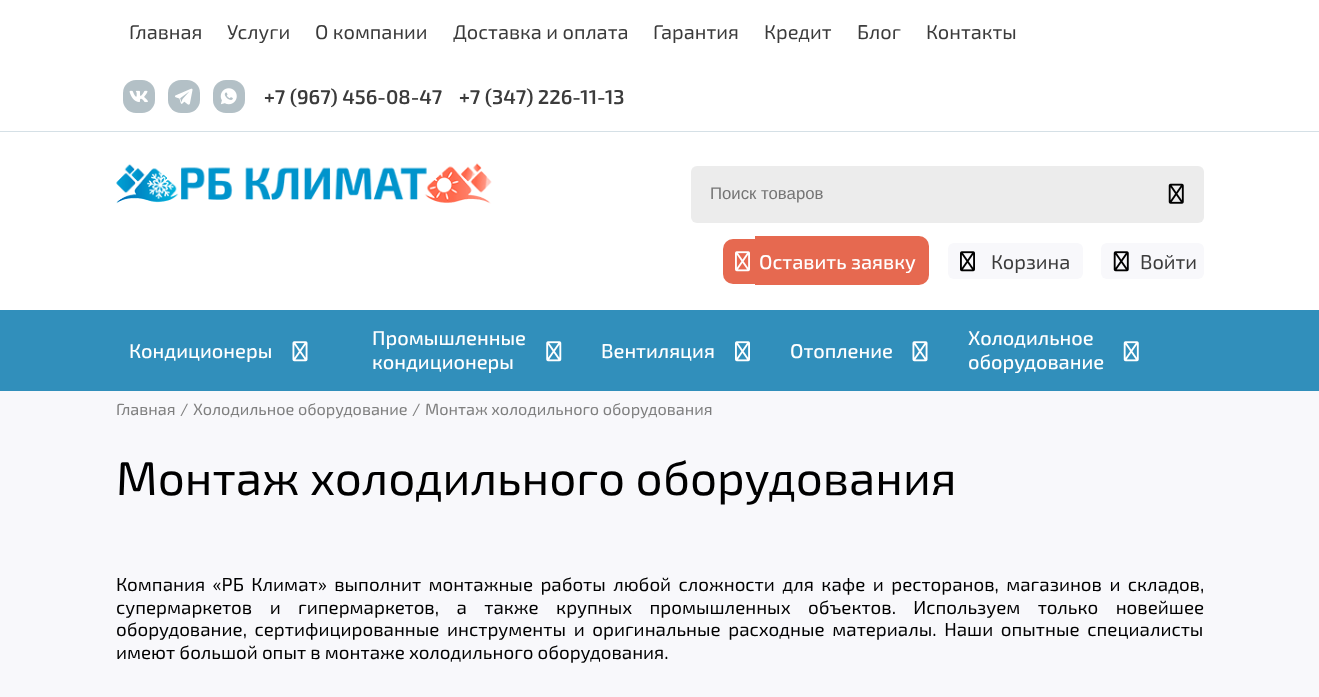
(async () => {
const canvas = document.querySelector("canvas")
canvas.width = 1319
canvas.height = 697
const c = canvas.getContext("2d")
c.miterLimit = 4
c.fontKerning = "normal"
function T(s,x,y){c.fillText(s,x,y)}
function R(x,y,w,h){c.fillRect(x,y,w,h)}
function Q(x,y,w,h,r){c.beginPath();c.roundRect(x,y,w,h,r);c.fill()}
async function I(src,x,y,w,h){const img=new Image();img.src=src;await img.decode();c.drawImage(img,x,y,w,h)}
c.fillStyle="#fff"
R(0,0,1319,697)
c.fillStyle="#d5e0e6"
R(0,131,1319,1)
c.font="20px 'Exo 2'"
c.fillStyle="#3b3b3b"
T("Главная",129,39)
T("Услуги",227,39)
T("О компании",315,39)
T("Доставка и оплата",453,39)
T("Гарантия",653,39)
T("Кредит",764,39)
T("Блог",857,39)
T("Контакты",926,39)
c.fillStyle="#b3c0c6"
Q(123,80,32,33,13)
await I("1.png",129,90,19,13)
Q(168,80,32,33,13)
await I("2.png",175,88,18,17)
Q(213,80,32,33,13)
await I("3.png",220,88,17,17)
c.font="600 20px 'Exo 2'"
c.fillStyle="#3b3b3b"
T("+7 (967) 456-08-47",264,104)
T("+7 (347) 226-11-13",459,104)
await I("4.png",116,163,376,41)
c.fillStyle="#ececec"
Q(691,166,513,57,6)
c.font="16.75px Liberation Sans"
c.fillStyle="#757575"
T("Поиск товаров",710,199)
await I("5.png",1168,183,16,21)
c.fillStyle="#e66950"
c.beginPath()
c.roundRect(723,239,32,45,[10,0,0,10])
c.fill()
c.beginPath()
c.roundRect(755,236,174,49,[0,10,10,0])
c.fill()
await I("6.png",735,251,15,21)
c.font="500 20px 'Exo 2'"
c.fillStyle="#fff"
T("Оставить заявку",759,269)
c.fillStyle="#f8f8fb"
Q(948,243,135,36,6)
await I("7.png",960,251,15,21)
c.font="20px 'Exo 2'"
c.fillStyle="#3b3b3b"
T("Корзина",991,269)
c.fillStyle="#f8f8fb"
Q(1101,243,103,36,6)
await I("8.png",1113,251,16,21)
c.fillStyle="#3b3b3b"
T("Войти",1140,269)
c.fillStyle="#318fbb"
R(0,310,1319,81)
c.font="500 20px 'Exo 2'"
c.fillStyle="#fff"
T("Кондиционеры",129,358)
await I("9.png",292,341,16,21)
T("Промышленные",372,345)
T("кондиционеры",372,369)
await I("10.png",546,341,16,21)
T("Вентиляция",601,358)
await I("11.png",735,341,15,21)
T("Отопление",790,358)
await I("9.png",912,341,16,21)
T("Холодильное",968,345)
T("оборудование",968,369)
await I("12.png",1123,341,16,21)
c.fillStyle="#f8f8fb"
R(0,391,1319,306)
c.font="16.25px 'Exo 2'"
c.fillStyle="#7f7f7f"
T("Главная",116,415)
T("/",180,415)
T("Холодильное оборудование",193,415)
T("/",412,415)
T("Монтаж холодильного оборудования",425,415)
c.font="47.5px 'Exo 2'"
c.fillStyle="#000"
T("Монтаж холодильного оборудования",116,495)
c.wordSpacing="3.25px"
c.font="18.75px 'Exo 2'"
T("Компания «РБ Климат» выполнит монтажные работы любой сложности для кафе и ресторанов, магазинов и складов,",116,591)
c.wordSpacing="13.25px"
T("супермаркетов и гипермаркетов, а также крупных промышленных объектов. Используем только новейшее",116,614)
c.wordSpacing="3.5px"
T("оборудование, сертифицированные инструменты и оригинальные расходные материалы. Наши опытные специалисты",116,636)
c.wordSpacing="0px"
T("имеют большой опыт в монтаже холодильного оборудования.",116,659)
})()
